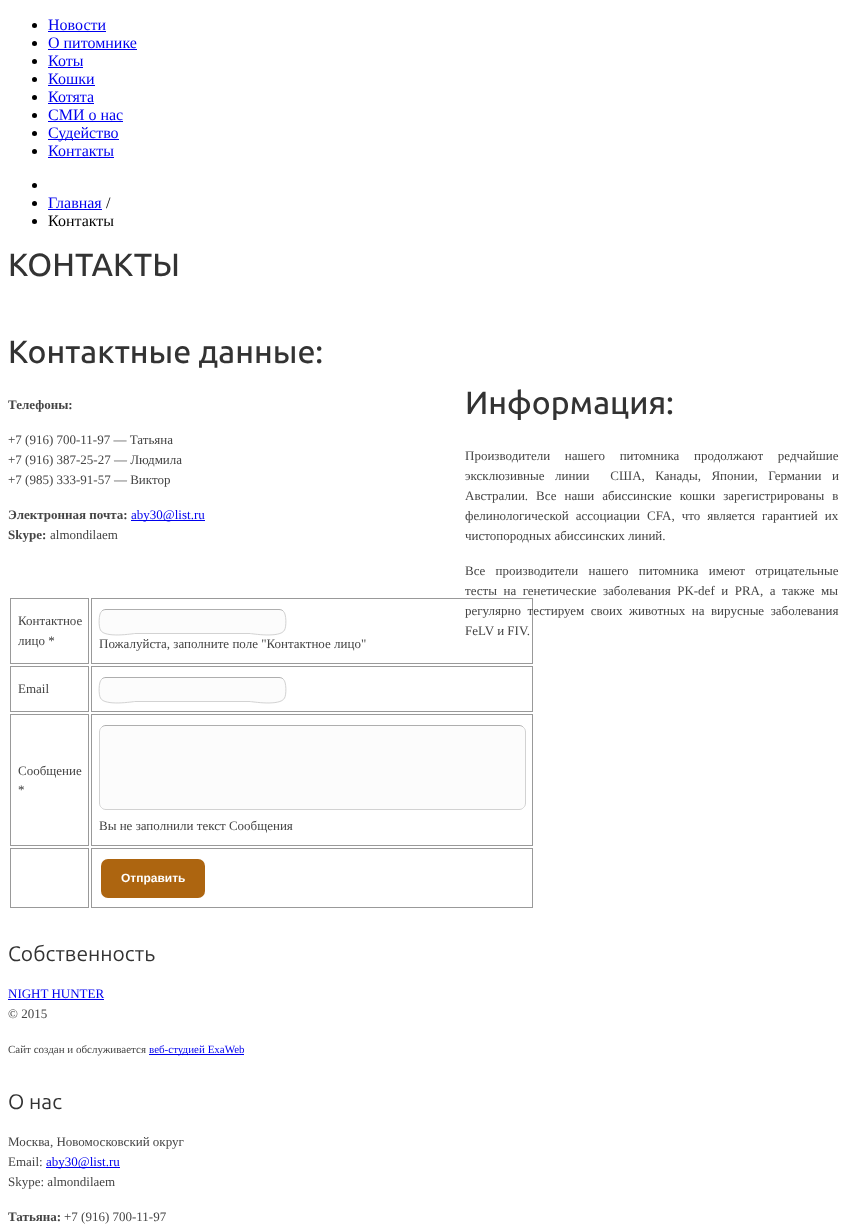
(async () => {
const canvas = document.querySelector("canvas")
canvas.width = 846
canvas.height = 1227
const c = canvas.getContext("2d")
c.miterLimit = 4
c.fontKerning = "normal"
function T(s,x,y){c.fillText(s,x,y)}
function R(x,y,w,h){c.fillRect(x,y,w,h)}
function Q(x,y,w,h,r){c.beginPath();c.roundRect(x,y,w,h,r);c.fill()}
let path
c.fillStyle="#fff"
R(0,0,846,1227)
c.fillStyle="#000"
c.beginPath()
c.arc(34.5,25.5,2.5,0,7)
c.fill()
c.font="16px Liberation Serif"
c.fillStyle="#00e"
T("Новости",48,30)
R(48,31,58,1)
c.fillStyle="#000"
c.beginPath()
c.arc(34.5,43.5,2.5,0,7)
c.fill()
c.fillStyle="#00e"
T("О питомнике",48,48)
R(48,49,89,1)
c.fillStyle="#000"
c.beginPath()
c.arc(34.5,61.5,2.5,0,7)
c.fill()
c.fillStyle="#00e"
T("Коты",48,66)
R(48,67,35,1)
c.fillStyle="#000"
c.beginPath()
c.arc(34.5,79.5,2.5,0,7)
c.fill()
c.fillStyle="#00e"
T("Кошки",48,84)
R(48,85,47,1)
c.fillStyle="#000"
c.beginPath()
c.arc(34.5,97.5,2.5,0,7)
c.fill()
c.fillStyle="#00e"
T("Котята",48,102)
R(48,103,46,1)
c.fillStyle="#000"
c.beginPath()
c.arc(34.5,115.5,2.5,0,7)
c.fill()
c.fillStyle="#00e"
T("СМИ о нас",48,120)
R(48,121,75,1)
c.fillStyle="#000"
c.beginPath()
c.arc(34.5,133.5,2.5,0,7)
c.fill()
c.fillStyle="#00e"
R(48,139,71,1)
T("Судейство",48,138)
c.fillStyle="#000"
c.beginPath()
c.arc(34.5,151.5,2.5,0,7)
c.fill()
c.fillStyle="#00e"
T("Контакты",48,156)
R(48,157,66,1)
c.fillStyle="#000"
c.beginPath()
c.arc(34.5,185.5,2.5,0,7)
c.fill()
c.beginPath()
c.arc(34.5,203.5,2.5,0,7)
c.fill()
c.fillStyle="#00e"
T("Главная",48,208)
R(48,209,54,1)
c.fillStyle="#000"
T("/",106,208)
c.beginPath()
c.arc(34.5,221.5,2.5,0,7)
c.fill()
T("Контакты",48,226)
c.font="500 32px Ubuntu"
c.fillStyle="#333"
T("КОНТАКТЫ",8,276)
T("Контактные данные:",8,363)
c.font="bold 13px Liberation Serif"
c.fillStyle="#444"
T("Телефоны:",8,409)
c.font="500 32px Ubuntu"
c.fillStyle="#333"
T("Информация:",465,414)
c.wordSpacing="11.5px"
c.font="13px Liberation Serif"
c.fillStyle="#444"
T("Производители нашего питомника продолжают редчайшие",465,460)
c.wordSpacing="7.25px"
T("эксклюзивные линии  США, Канады, Японии, Германии и",465,480)
c.wordSpacing="4.75px"
T("Австралии. Все наши абиссинские кошки зарегистрированы в",465,500)
c.wordSpacing="3.75px"
T("фелинологической ассоциации CFA, что является гарантией их",465,520)
c.wordSpacing="0px"
T("чистопородных абиссинских линий.",465,540)
c.wordSpacing="7px"
T("Все производители нашего питомника имеют отрицательные",465,575)
c.wordSpacing="3.25px"
T("тесты на генетические заболевания PK-def и PRA, а также мы",465,595)
c.strokeStyle="#999"
c.strokeRect(91.5,598.5,441,65)
T("регулярно тестируем своих животных на вирусные заболевания",465,615)
c.wordSpacing="0px"
T("FeLV и FIV.",465,635)
T("+7 (916) 700-11-97 — Татьяна",8,444)
T("+7 (916) 387-25-27 — Людмила",8,464)
T("+7 (985) 333-91-57 — Виктор",8,484)
c.font="bold 13px Liberation Serif"
T("Электронная почта:",8,519)
c.fillStyle="#00e"
R(131,520,74,1)
c.font="13px Liberation Serif"
T("aby30@list.ru",131,519)
c.font="bold 13px Liberation Serif"
c.fillStyle="#444"
T("Skype:",8,539)
c.font="13px Liberation Serif"
T("almondilaem",50,539)
c.strokeRect(10.5,598.5,78,65)
T("Контактное",18,625)
T("лицо *",18,645)
c.fillStyle="#fcfcfc"
Q(99,609,187,25,7)
path = new Path2D("M101.5 611.5c1-1.5 3-2 4.5-2h173c1.5 0 3.5 .5 4.5 2")
c.strokeStyle="#aeaeae"
c.stroke(path)
path = new Path2D("M283.5 611.5c3 2.5 3 15.5 1 18.5c-4 8.5-33.5 3.5-34.5 3.5h-115c-1 0-30.5 5-34.5-3.5c-2-3-2-16 1-18.5")
c.strokeStyle="#d2d2d2"
c.stroke(path)
c.fillStyle="#444"
T("Пожалуйста, заполните поле \"Контактное лицо\"",99,648)
c.strokeStyle="#999"
c.strokeRect(10.5,666.5,78,45)
T("Email",18,693)
c.strokeRect(91.5,666.5,441,45)
c.fillStyle="#fcfcfc"
Q(99,677,187,25,7)
path = new Path2D("M101.5 679.5c1-1.5 3-2 4.5-2h173c1.5 0 3.5 .5 4.5 2")
c.strokeStyle="#aeaeae"
c.stroke(path)
path = new Path2D("M283.5 679.5c3 2.5 3 15.5 1 18.5c-4 8.5-33.5 3.5-34.5 3.5h-115c-1 0-30.5 5-34.5-3.5c-2-3-2-16 1-18.5")
c.strokeStyle="#d2d2d2"
c.stroke(path)
c.strokeStyle="#999"
c.strokeRect(10.5,714.5,78,131)
c.fillStyle="#444"
T("Сообщение",18,775)
T("*",18,794)
c.strokeRect(91.5,714.5,441,131)
c.fillStyle="#fcfcfc"
Q(99,725,427,85,7)
path = new Path2D("M101.5 727.5c1-1.5 3-2 4.5-2h413c1.5 0 3.5 .5 4.5 2")
c.strokeStyle="#aeaeae"
c.stroke(path)
path = new Path2D("M523.5 727.5c1.5 1 2 3 2 4.5v71c0 1.5-.5 3.5-2 4.5c-1 1.5-3 2-4.5 2h-413c-1.5 0-3.5-.5-4.5-2c-1.5-1-2-3-2-4.5v-71c0-1.5 .5-3.5 2-4.5")
c.strokeStyle="#d2d2d2"
c.stroke(path)
c.fillStyle="#444"
T("Вы не заполнили текст Сообщения",99,830)
c.strokeStyle="#999"
c.strokeRect(10.5,848.5,78,59)
c.strokeRect(91.5,848.5,441,59)
c.fillStyle="#ad6510"
Q(101,859,104,39,7)
c.font="bold 12px Liberation Sans"
c.fillStyle="#fff"
T("Отправить",121,882)
c.font="21px Ubuntu"
c.fillStyle="#333"
T("Собственность",8,961)
c.font="13px Liberation Serif"
c.fillStyle="#00e"
T("NIGHT HUNTER",8,998)
R(8,999,96,1)
c.fillStyle="#444"
T("© 2015",8,1018)
c.font="11px Liberation Serif"
T("Сайт создан и обслуживается",8,1053)
c.fillStyle="#00e"
R(149,1054,95,1)
T("веб-студией ExaWeb",149,1053)
c.font="21px Ubuntu"
c.fillStyle="#333"
T("О нас",8,1109)
c.font="13px Liberation Serif"
c.fillStyle="#444"
T("Москва, Новомосковский округ",8,1146)
T("Email:",8,1166)
c.fillStyle="#00e"
R(46,1167,74,1)
T("aby30@list.ru",46,1166)
c.fillStyle="#444"
T("Skype: almondilaem",8,1186)
c.font="bold 13px Liberation Serif"
T("Татьяна:",8,1221)
c.font="13px Liberation Serif"
T("+7 (916) 700-11-97",64,1221)
})()
